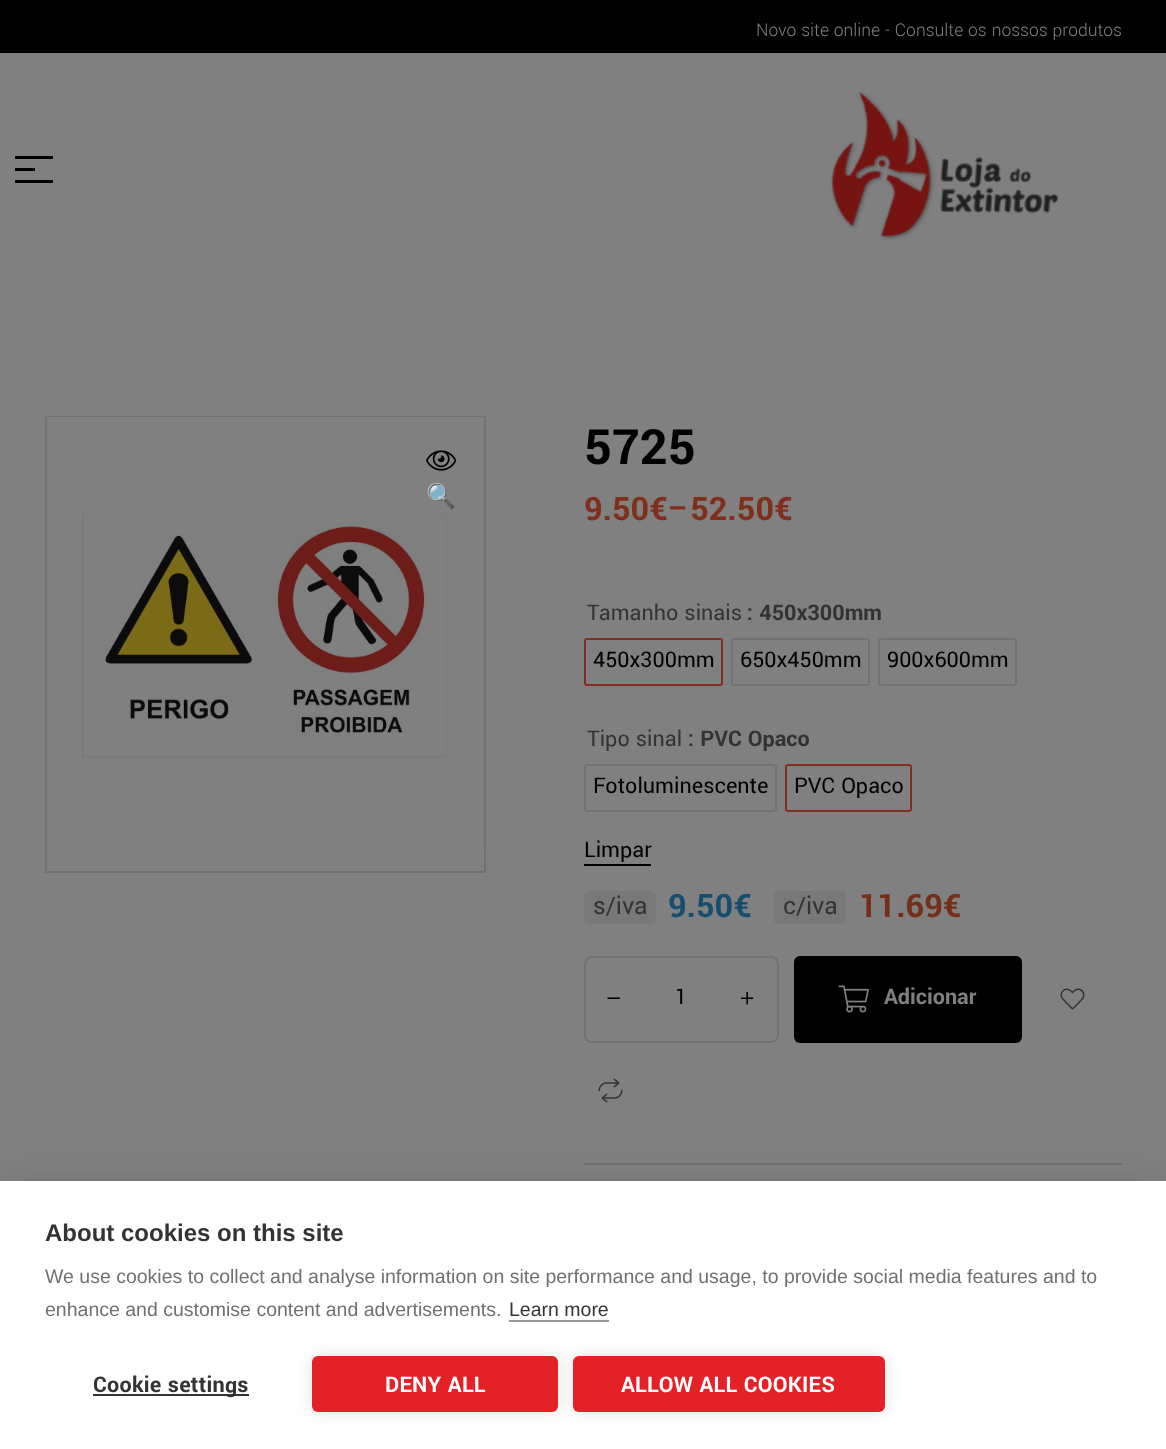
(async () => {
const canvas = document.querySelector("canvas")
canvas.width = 1166
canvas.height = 1449
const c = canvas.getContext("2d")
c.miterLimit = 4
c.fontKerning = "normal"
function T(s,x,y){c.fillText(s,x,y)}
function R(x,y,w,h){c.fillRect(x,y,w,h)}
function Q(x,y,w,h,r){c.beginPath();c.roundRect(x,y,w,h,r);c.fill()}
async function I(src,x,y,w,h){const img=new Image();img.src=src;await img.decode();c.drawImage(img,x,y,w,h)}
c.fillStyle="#808080"
R(0,0,1166,1449)
c.fillStyle="#000"
R(0,0,1166,53)
c.font="300 19.5px Yantramanav"
c.fillStyle="#808080"
T("Novo site online - Consulte os nossos produtos",756,36)
c.fillStyle="#000"
R(15,156,38,3)
R(15,168,20,3)
R(15,180,38,3)
await I("1.png",830,91,228,149)
c.strokeStyle="#717171"
c.lineWidth=2
c.strokeRect(46,417,439,455)
await I("2.png",46,417,439,438)
await I("3.png",426,450,30,21)
c.font="24px Noto Color Emoji"
T("🔍",426,504)
c.font="bold 54px Yantramanav"
T("5725",584,464)
c.font="bold 36px Yantramanav"
c.fillStyle="#802f1d"
T("9.50€–52.50€",584,520)
c.font="24px Yantramanav"
c.fillStyle="#333"
T("Tamanho sinais",587,620)
c.font="bold 24px Yantramanav"
T(": 450x300mm",747,620)
c.beginPath()
c.roundRect(585,639,137,46,2)
c.strokeStyle="#802f1d"
c.stroke()
c.font="24px Yantramanav"
c.fillStyle="#000"
T("450x300mm",593,667)
c.beginPath()
c.roundRect(732,639,137,46,2)
c.strokeStyle="#717171"
c.stroke()
T("650x450mm",740,667)
c.beginPath()
c.roundRect(879,639,137,46,2)
c.stroke()
T("900x600mm",887,667)
c.fillStyle="#333"
T("Tipo sinal",587,746)
c.font="bold 24px Yantramanav"
T(": PVC Opaco",688,746)
c.beginPath()
c.roundRect(585,765,191,46,2)
c.stroke()
c.font="24px Yantramanav"
c.fillStyle="#000"
T("Fotoluminescente",593,793)
c.beginPath()
c.roundRect(786,765,125,46,2)
c.strokeStyle="#802f1d"
c.stroke()
T("PVC Opaco",794,793)
R(584,864,67,2)
T("Limpar",584,857)
c.fillStyle="#787878"
Q(584,891,72,33,5)
c.font="27px Yantramanav"
c.fillStyle="#333"
T("s/iva",593,914)
c.font="bold 36px Yantramanav"
c.fillStyle="#174e6e"
T("9.50€",668,917)
c.fillStyle="#787878"
Q(774,891,72,33,5)
c.font="27px Yantramanav"
c.fillStyle="#333"
T("c/iva",783,914)
c.font="bold 36px Yantramanav"
c.fillStyle="#742e1a"
T("11.69€",859,917)
c.beginPath()
c.roundRect(585,957,193,85,7)
c.strokeStyle="#717171"
c.stroke()
await I("4.png",607,997,13,2)
c.font="24px Yantramanav"
c.fillStyle="#000"
T("1",675,1004)
await I("5.png",741,992,13,13)
Q(794,956,228,87,6)
await I("6.png",838,985,31,28)
c.font="bold 24px Yantramanav"
c.fillStyle="#808080"
T("Adicionar",884,1004)
await I("7.png",1060,988,25,22)
await I("8.png",598,1078,25,25)
c.fillStyle="#717171"
R(584,1163,538,2)
c.fillStyle="#0000001a"
c.filter="blur(15px)"
c.beginPath()
c.rect(0,1181,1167,268)
c.fill()
c.filter="none"
c.fillStyle="#fff"
R(0,1181,1166,268)
c.font="bold 24px Liberation Sans"
c.fillStyle="#333"
T("About cookies on this site",45,1241)
c.font="19.5px Liberation Sans"
c.fillStyle="#707070"
T("We use cookies to collect and analyse information on site performance and usage, to provide social media features and to",45,1283)
T("enhance and customise content and advertisements.",45,1316)
c.fillStyle="#333"
T("Learn more",509,1316)
c.fillStyle="#999"
R(509,1320,100,2)
c.fillStyle="#333"
R(93,1394,156,2)
c.letterSpacing="0.25px"
c.font="bold 24px Yantramanav"
T("Cookie settings",93,1392)
c.fillStyle="#0000001f"
c.filter="blur(7.5px)"
c.beginPath()
c.roundRect(312,1356,246,56,6)
c.fill()
c.filter="none"
c.fillStyle="#e42127"
Q(312,1356,246,56,6)
c.fillStyle="#fff"
T("DENY ALL",385,1392)
c.fillStyle="#0000001f"
c.filter="blur(7.5px)"
c.beginPath()
c.roundRect(573,1356,312,56,6)
c.fill()
c.filter="none"
c.fillStyle="#e42127"
Q(573,1356,312,56,6)
c.fillStyle="#fff"
T("ALLOW ALL COOKIES",621,1392)
})()
